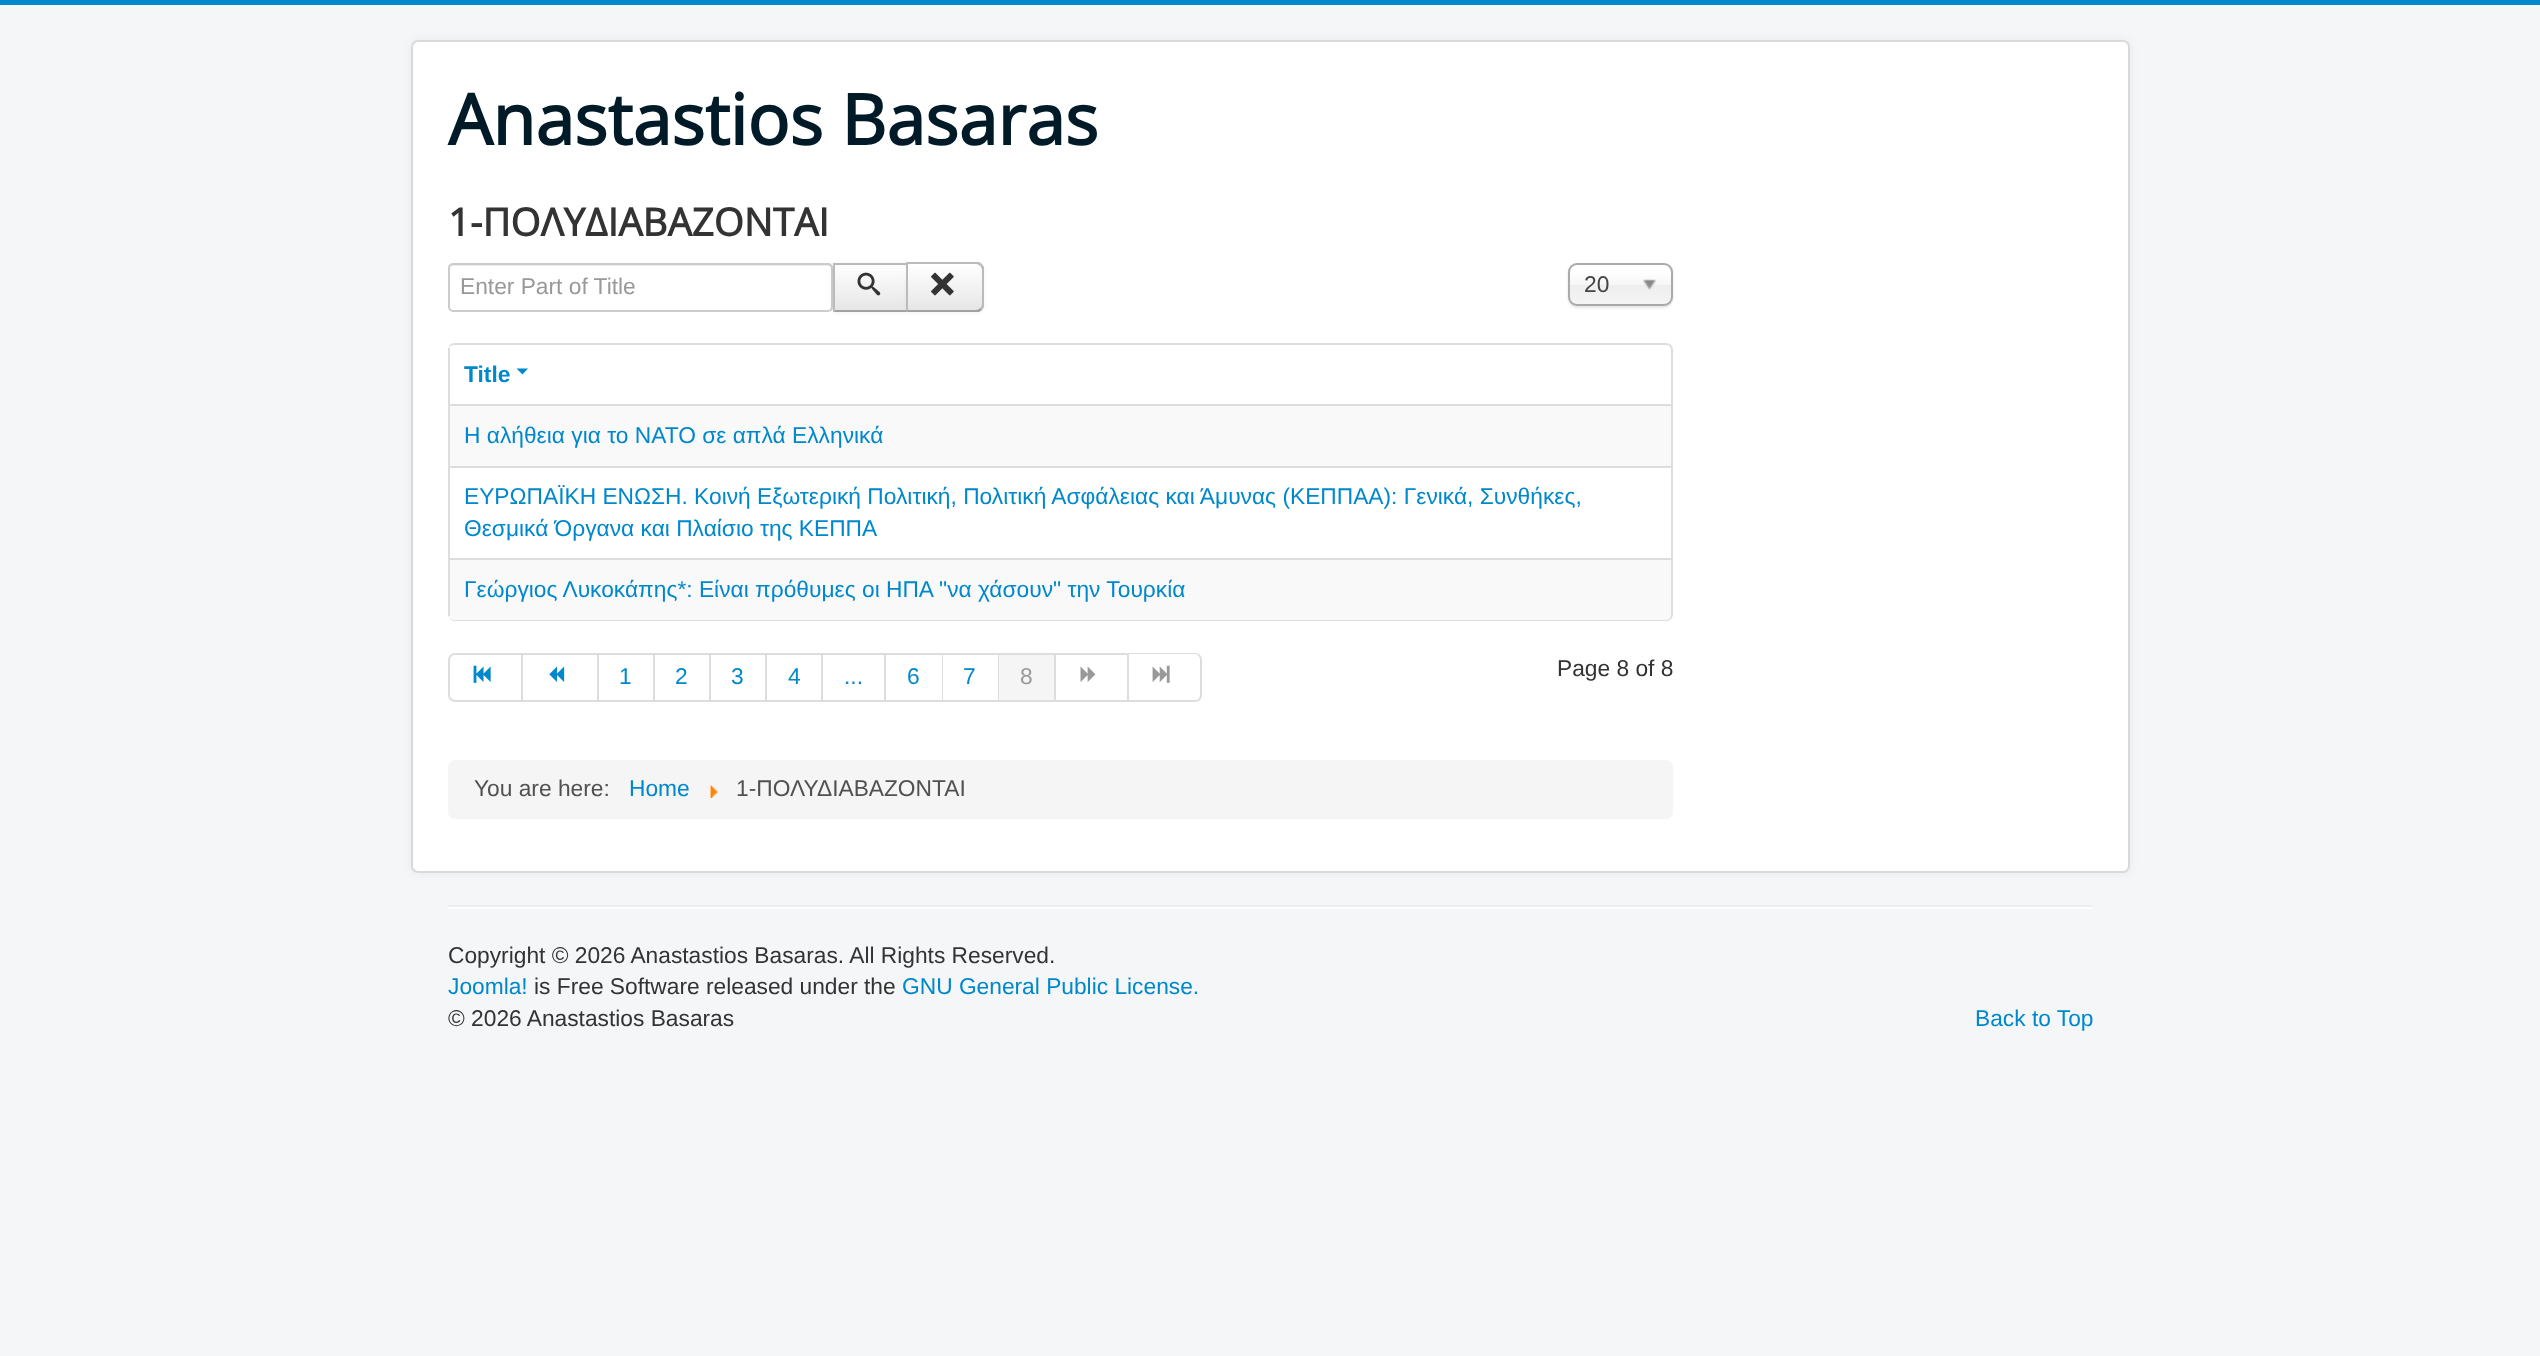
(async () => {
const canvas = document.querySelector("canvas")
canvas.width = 2540
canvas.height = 1356
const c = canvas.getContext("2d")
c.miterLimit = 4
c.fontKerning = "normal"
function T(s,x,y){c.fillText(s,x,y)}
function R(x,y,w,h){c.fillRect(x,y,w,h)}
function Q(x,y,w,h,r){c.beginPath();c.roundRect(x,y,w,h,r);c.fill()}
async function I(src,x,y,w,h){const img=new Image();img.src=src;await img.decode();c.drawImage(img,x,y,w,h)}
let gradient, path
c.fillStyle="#f4f6f7"
R(0,0,2540,1356)
c.fillStyle="#08c"
R(0,0,2540,5)
c.fillStyle="#0000000d"
c.filter="blur(5px)"
c.beginPath()
c.roundRect(411,40,1719,833,7)
c.fill()
c.filter="none"
c.fillStyle="#fff"
Q(411,40,1719,833,7)
c.beginPath()
c.roundRect(412,41,1717,831,6)
c.strokeStyle="#00000026"
c.lineWidth=2
c.stroke()
c.font="bold 70px Open Sans"
c.fillStyle="#001a27"
T("Anastastios Basaras",448,145)
c.font="bold 38.5px Open Sans"
c.fillStyle="#333"
T("1-ΠΟΛΥΔΙΑΒΑΖΟΝΤΑΙ",448,236)
c.fillStyle="#ececec"
path = new Path2D("M453 266h375c2 0 3 2 3 4v-2c0-2-2-4-4-4h-373c-2 0-4 2-4 4v2c0-2 1-4 3-4z")
c.fill(path)
c.beginPath()
c.roundRect(449,264,383,47,4)
c.strokeStyle="#ccc"
c.stroke()
c.font="22.75px Liberation Sans"
c.fillStyle="#999"
T("Enter Part of Title",460,294)
c.fillStyle="#0000000d"
c.filter="blur(2px)"
c.beginPath()
c.rect(833,264,75,49)
c.fill()
c.filter="none"
gradient = c.createLinearGradient(871,264,871,310)
gradient.addColorStop(0,"#fff")
gradient.addColorStop(1,"#e6e6e6")
c.fillStyle = gradient
R(835,265,71,45)
c.fillStyle="#bbb"
R(833,263,75,2)
c.fillStyle="#a2a2a2"
R(833,310,75,2)
c.fillStyle="#bbb"
R(833,263,2,49)
await I("1.png",857,272,24,24)
c.fillStyle="#0000000d"
c.filter="blur(2px)"
c.beginPath()
c.roundRect(907,264,77,49,7)
c.fill()
c.filter="none"
c.save()
c.beginPath()
c.roundRect(907,263,77,49,[0,7,7,0])
c.clip()
gradient = c.createLinearGradient(945,264,945,310)
gradient.addColorStop(0,"#fff")
gradient.addColorStop(1,"#e6e6e6")
c.fillStyle = gradient
R(908,264,76,46)
c.restore()
c.fillStyle="#bbb"
path = new Path2D("M908 264l-2-2h73l3 2l-2 2c-1-1-2-2-4-2z")
c.fill(path)
path = new Path2D("M984 307l-2 3l-2-2c1-1 2-2 2-4v-34c0-2-1-3-2-4l2-2l2 3z")
c.fill(path)
c.fillStyle="#a2a2a2"
path = new Path2D("M982 310l-3 2h-73l2-2h68c2 0 3-1 4-2z")
c.fill(path)
c.fillStyle="#bbb"
path = new Path2D("M906 312l2-2v-46l-2-2z")
c.fill(path)
await I("2.png",931,272,23,24)
c.fillStyle="#0000001a"
c.filter="blur(1px)"
c.beginPath()
c.roundRect(1568,264,105,44,9)
c.fill()
c.filter="none"
gradient = c.createLinearGradient(1621,264,1621,305)
gradient.addColorStop(.2,"#fff")
gradient.addColorStop(.5,"#f6f6f6")
gradient.addColorStop(.52,"#eee")
gradient.addColorStop(1,"#f4f4f4")
c.fillStyle = gradient
Q(1570,264,101,41,7)
c.beginPath()
c.roundRect(1569,264,103,41,8)
c.strokeStyle="#aaa"
c.stroke()
c.fillStyle="#444"
T("20",1584,292)
await I("3.png",1643,279,13,11)
c.fillStyle="#ddd"
path = new Path2D("M455 343h1211c4 0 7 3 7 7v264c0 4-3 7-7 7h-1211c-4 0-7-3-7-7v-264c0-4 3-7 7-7zm0 2h1211c3 0 5 2 5 5v264c0 3-2 6-5 6h-1211c-4 0-7-3-7-6v-264c0-3 3-5 7-5z")
c.fill(path,"evenodd")
R(448,348,2,56)
c.font="bold 22.75px Liberation Sans"
c.fillStyle="#08c"
T("Title",464,382)
path = new Path2D("M516.5 368.5h11.5l-5.5 6z")
c.fill(path)
c.fillStyle="#f9f9f9"
R(450,406,1221,60)
c.fillStyle="#ddd"
R(448,404,1223,2)
R(448,404,2,62)
c.font="22.75px Liberation Sans"
c.fillStyle="#08c"
T("Η αλήθεια για το ΝΑΤΟ σε απλά Ελληνικά",464,443)
c.fillStyle="#ddd"
R(448,466,1223,2)
R(448,466,2,92)
c.fillStyle="#08c"
T("ΕΥΡΩΠΑΪΚΗ ΕΝΩΣΗ. Κοινή Εξωτερική Πολιτική, Πολιτική Ασφάλειας και Άμυνας (ΚΕΠΠΑΑ): Γενικά, Συνθήκες,",464,504)
T("Θεσμικά Όργανα και Πλαίσιο της ΚΕΠΠΑ",464,536)
c.fillStyle="#f9f9f9"
c.beginPath()
c.roundRect(448,558,1223,62,[0,0,7,7])
c.fill()
c.fillStyle="#ddd"
R(448,558,1223,2)
R(448,558,2,58)
c.fillStyle="#08c"
T("Γεώργιος Λυκοκάπης*: Είναι πρόθυμες οι ΗΠΑ \"να χάσουν\" την Τουρκία",464,597)
c.beginPath()
c.roundRect(449,654,73,47,[6,0,0,6])
c.strokeStyle="#ddd"
c.stroke()
await I("4.png",473,665,18,18)
c.fillStyle="#ddd"
R(523,653,532,2)
R(597,653,2,49)
R(523,700,76,2)
await I("5.png",549,666,16,16)
R(1054,653,2,49)
R(1055,653,74,2)
R(1127,653,2,49)
R(1055,700,74,2)
await I("6.png",1080,666,16,16)
path = new Path2D("M1129 653h66c4 0 7 3 7 7v35c0 4-3 7-7 7h-66zm0 1h66c3 0 5 3 5 6v35c0 3-2 5-5 5h-66z")
c.fill(path,"evenodd")
await I("7.png",1152,665,18,18)
R(653,653,2,49)
R(599,700,56,2)
c.fillStyle="#08c"
T("1",619,684)
c.fillStyle="#ddd"
R(709,653,2,49)
R(655,700,56,2)
c.fillStyle="#08c"
T("2",675,684)
c.fillStyle="#ddd"
R(765,653,2,49)
R(711,700,56,2)
c.fillStyle="#08c"
T("3",731,684)
c.fillStyle="#ddd"
R(821,653,2,49)
R(767,700,56,2)
c.fillStyle="#08c"
T("4",788,684)
c.fillStyle="#ddd"
R(884,653,2,49)
R(823,700,63,2)
c.fillStyle="#08c"
T("...",844,684)
c.fillStyle="#ddd"
R(942,653,1,49)
R(886,700,57,2)
c.fillStyle="#08c"
T("6",907,684)
c.fillStyle="#ddd"
R(998,653,1,49)
R(943,700,56,2)
c.fillStyle="#08c"
T("7",963,684)
c.fillStyle="#f5f5f5"
R(999,655,55,45)
c.fillStyle="#ddd"
R(999,700,56,2)
c.fillStyle="#999"
T("8",1020,684)
c.fillStyle="#333"
T("Page 8 of 8",1557,676)
c.fillStyle="#f5f5f5"
Q(448,760,1225,59,7)
c.fillStyle="#515151"
T("You are here:",474,796)
c.fillStyle="#08c"
T("Home",629,796)
await I("8.png",710,785,8,13)
c.fillStyle="#515151"
T("1-ΠΟΛΥΔΙΑΒΑΖΟΝΤΑΙ",736,796)
c.fillStyle="#eee"
R(448,905,1645,2)
c.fillStyle="#fff"
R(448,907,1645,2)
c.fillStyle="#333"
T("Copyright © 2026 Anastastios Basaras. All Rights Reserved.",448,963)
c.fillStyle="#08c"
T("Joomla!",448,994)
c.fillStyle="#333"
T("is Free Software released under the",534,994)
c.fillStyle="#08c"
T("GNU General Public License.",902,994)
c.fillStyle="#333"
T("© 2026 Anastastios Basaras",448,1026)
c.fillStyle="#08c"
T("Back to Top",1975,1026)
})()
